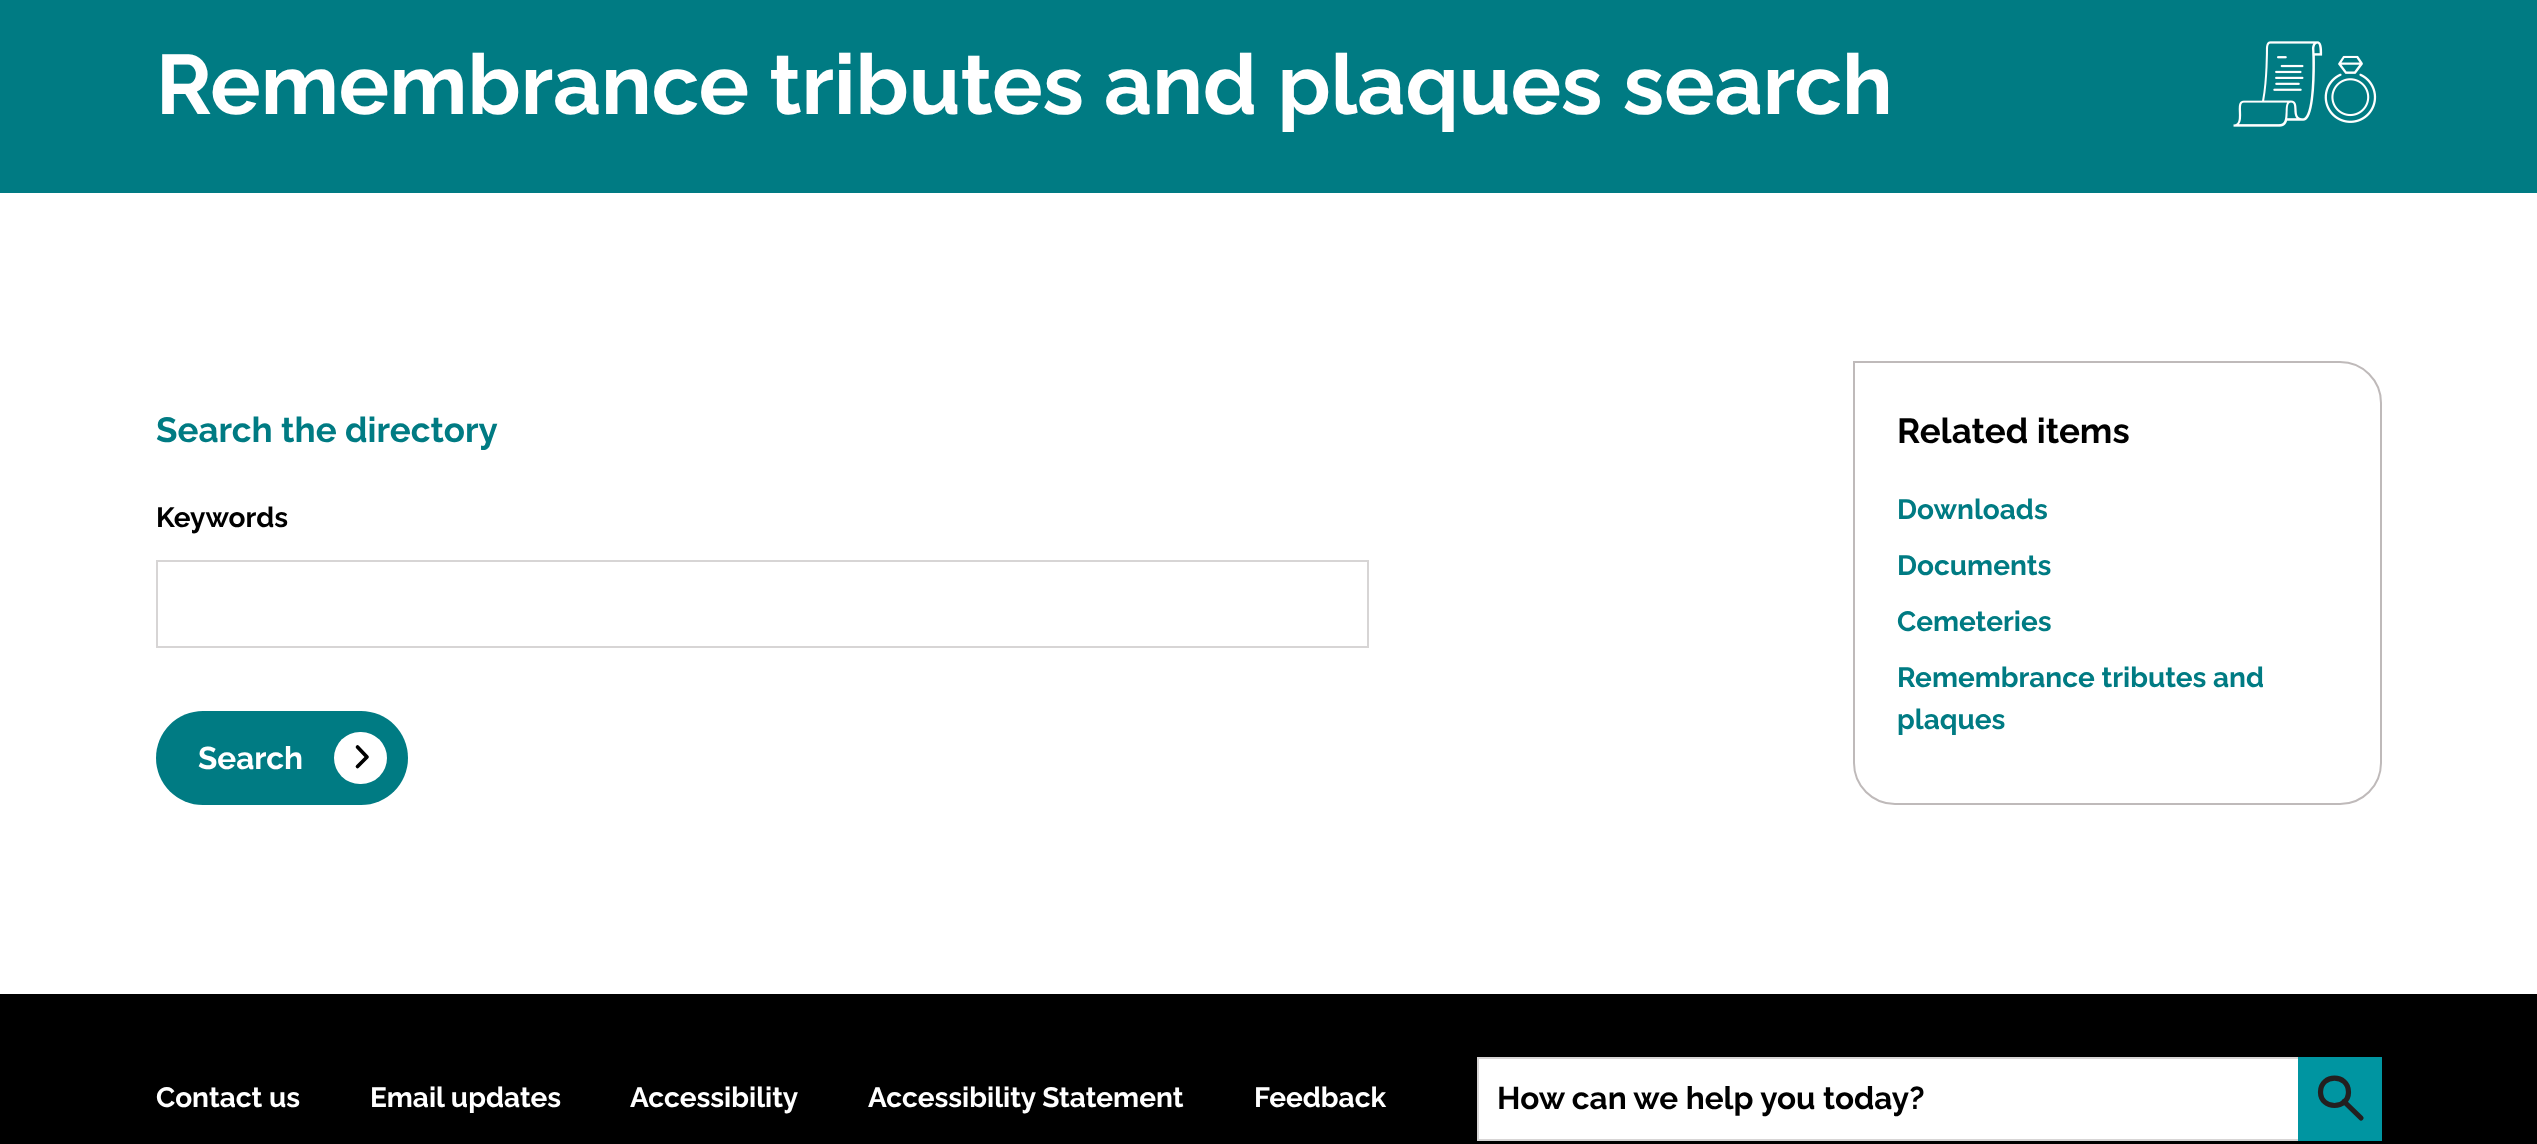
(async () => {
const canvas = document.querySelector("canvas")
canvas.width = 2537
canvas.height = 1144
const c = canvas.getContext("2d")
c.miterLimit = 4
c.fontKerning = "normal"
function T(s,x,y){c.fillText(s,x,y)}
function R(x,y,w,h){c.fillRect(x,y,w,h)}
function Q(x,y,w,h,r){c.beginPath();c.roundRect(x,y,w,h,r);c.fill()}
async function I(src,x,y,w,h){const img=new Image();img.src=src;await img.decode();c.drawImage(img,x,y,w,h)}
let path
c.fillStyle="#fff"
R(0,0,2537,1144)
c.fillStyle="#007b83"
R(0,0,2537,193)
c.font="bold 84px Raleway"
c.fillStyle="#fff"
T("Remembrance tributes and plaques search",156,114)
await I("1.png",2233,41,144,86)
c.font="bold 35px Raleway"
c.fillStyle="#007b83"
T("Search the directory",156,442)
c.font="bold 28px Raleway"
c.fillStyle="#000"
T("Keywords",156,527)
c.strokeStyle="#d7d5d5"
c.lineWidth=2
c.strokeRect(157,561,1211,86)
c.fillStyle="#007b83"
Q(156,711,252,94,47)
c.font="bold 31.5px Raleway"
c.fillStyle="#fff"
T("Search",198,769)
Q(334,732,53,52,26)
path = new Path2D("M357.5 747l9.5 10l-9.5 9.5")
c.strokeStyle="#000"
c.lineWidth=3.7
c.lineCap="round"
c.lineJoin="round"
c.stroke(path)
c.beginPath()
c.roundRect(1854,362,527,442,[0,41,41,41])
c.strokeStyle="#bfbaba"
c.lineWidth=2
c.lineJoin="miter"
c.stroke()
c.font="bold 35px Raleway"
c.fillStyle="#000"
T("Related items",1897,443)
c.font="bold 28px Raleway"
c.fillStyle="#007b83"
T("Downloads",1897,519)
T("Documents",1897,575)
T("Cemeteries",1897,631)
T("Remembrance tributes and",1897,687)
T("plaques",1897,729)
c.fillStyle="#000"
R(0,994,2537,150)
c.fillStyle="#fff"
T("Contact us",156,1107)
T("Email updates",370,1107)
T("Accessibility",630,1107)
T("Accessibility Statement",868,1107)
T("Feedback",1254,1107)
R(1479,1059,819,80)
c.strokeStyle="#d7d5d5"
c.strokeRect(1478,1058,903,82)
c.fillStyle="#0095a1"
R(2298,1057,84,84)
path = new Path2D("M2344 1101.5l17 16.5")
c.strokeStyle="#231f1f"
c.lineWidth=5.2
c.stroke(path)
path = new Path2D("M2348.5 1092c0 18-28 18-28 0c0-18.5 28-18.5 28 0z")
c.lineCap="butt"
c.stroke(path)
c.font="bold 31.5px Raleway"
c.fillStyle="#000"
T("How can we help you today?",1497,1109)
})()
